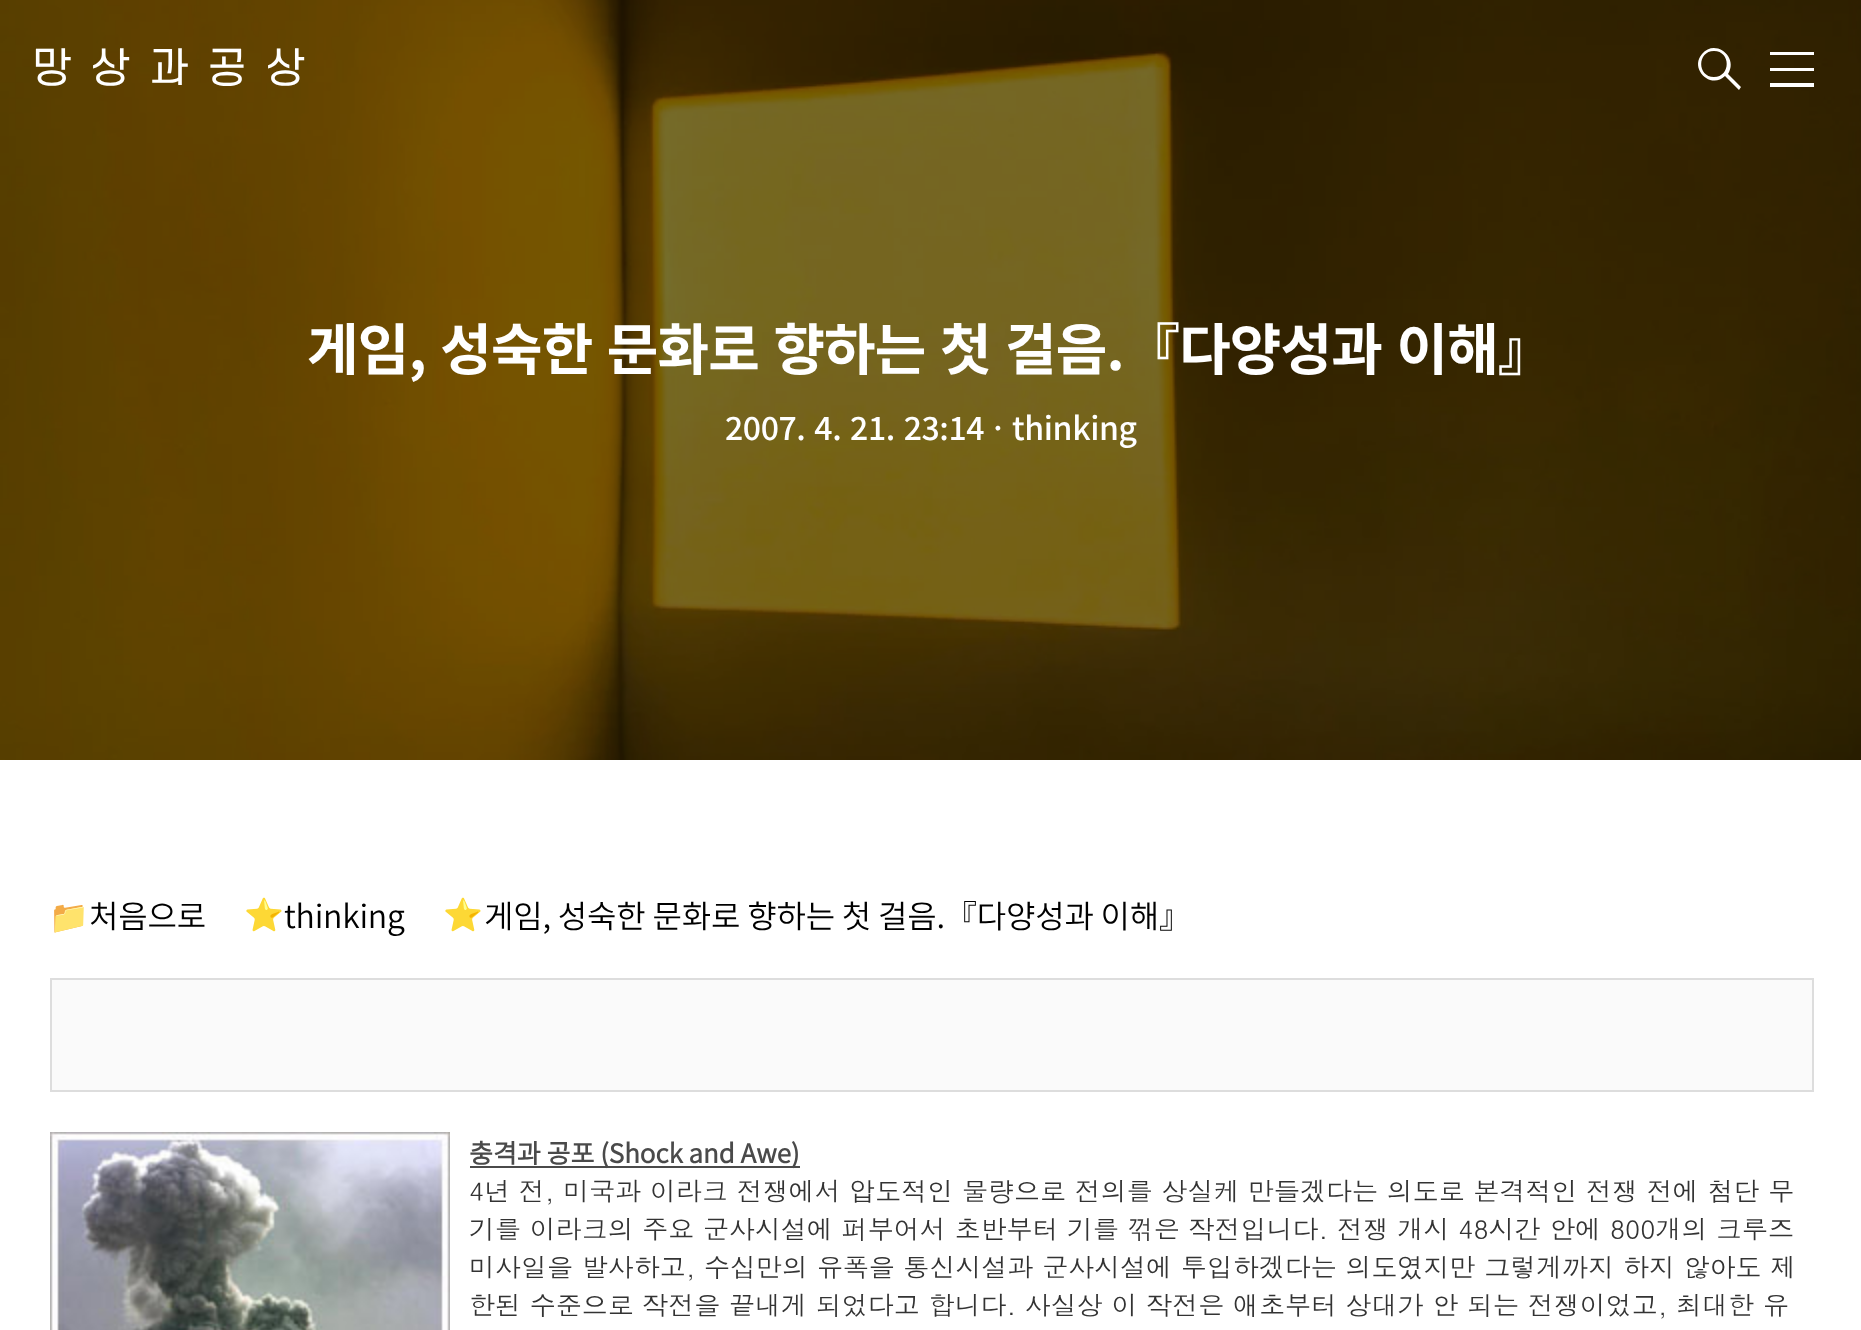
(async () => {
const canvas = document.querySelector("canvas")
canvas.width = 1861
canvas.height = 1330
const c = canvas.getContext("2d")
c.miterLimit = 4
c.fontKerning = "normal"
function T(s,x,y){c.fillText(s,x,y)}
function R(x,y,w,h){c.fillRect(x,y,w,h)}
async function I(src,x,y,w,h){const img=new Image();img.src=src;await img.decode();c.drawImage(img,x,y,w,h)}
let path
c.fillStyle="#fff"
R(0,0,1861,1330)
await I("1.png",0,0,1861,760)
c.letterSpacing="20px"
c.font="bold 40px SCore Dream"
T("망상과공상",32,83)
path = new Path2D("M1741 87l-2 3l-14-14c-14 14-36-7-23-22c13-16 37 3 26 20zm-27-36c-17 0-17 26 0 26c17 0 17-26 0-26z")
c.fill(path,"evenodd")
path = new Path2D("M1770 52h44v3h-44zm0 16h44v3h-44zm0 15h44v4h-44z")
c.fill(path,"evenodd")
c.letterSpacing="-0.8px"
c.wordSpacing="2.5px"
c.font="bold 56px 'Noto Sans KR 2'"
T("게임, 성숙한 문화로 향하는 첫 걸음.『다양성과 이해』",307,370)
c.letterSpacing="-0.4px"
c.wordSpacing="2px"
c.font="500 32px Noto Sans KR"
T("2007. 4. 21. 23:14",725,440)
c.wordSpacing="0px"
T("ㆍthinking",983,440)
c.letterSpacing="-0.2px"
c.font="32px Noto Color Emoji"
c.fillStyle="#000"
T("📁",49,928)
c.font="300 32px Noto Sans KR"
T("처음으로",89,928)
c.letterSpacing="0px"
c.font="bold 32px Noto Color Emoji"
c.fillStyle="#4a4a4a"
T("⭐",244,926)
c.letterSpacing="-0.2px"
c.font="300 32px Noto Sans KR"
c.fillStyle="#000"
T("thinking",284,928)
c.letterSpacing="0px"
c.font="bold 32px Noto Color Emoji"
c.fillStyle="#4a4a4a"
T("⭐",443,926)
c.letterSpacing="-0.2px"
c.font="300 32px Noto Sans KR"
c.fillStyle="#000"
T("게임, 성숙한 문화로 향하는 첫 걸음.『다양성과 이해』",484,928)
c.fillStyle="#fafafa"
c.beginPath()
c.rect(51,979,1762,112)
c.fill()
c.strokeStyle="#ddd"
c.lineWidth=2
c.stroke()
await I("2.png",50,1132,400,198)
c.fillStyle="#4a4a4a"
R(470,1166,330,2)
c.letterSpacing="0px"
c.font="bold 26px Noto Sans KR"
T("충격과 공포 (Shock and Awe)",469,1163)
c.font="26px Dotum"
c.fillStyle="#333"
T("4년 전, 미국과 이라크 전쟁에서 압도적인 물량으로 전의를 상실케 만들겠다는 의도로 본격적인 전쟁 전에 첨단 무",469,1201)
T("기를 이라크의 주요 군사시설에 퍼부어서 초반부터 기를 꺾은 작전입니다. 전쟁 개시 48시간 안에 800개의 크루즈",469,1239)
T("미사일을 발사하고, 수십만의 유폭을 통신시설과 군사시설에 투입하겠다는 의도였지만 그렇게까지 하지 않아도 제",469,1277)
T("한된 수준으로 작전을 끝내게 되었다고 합니다. 사실상 이 작전은 애초부터 상대가 안 되는 전쟁이었고, 최대한 유",469,1315)
})()
